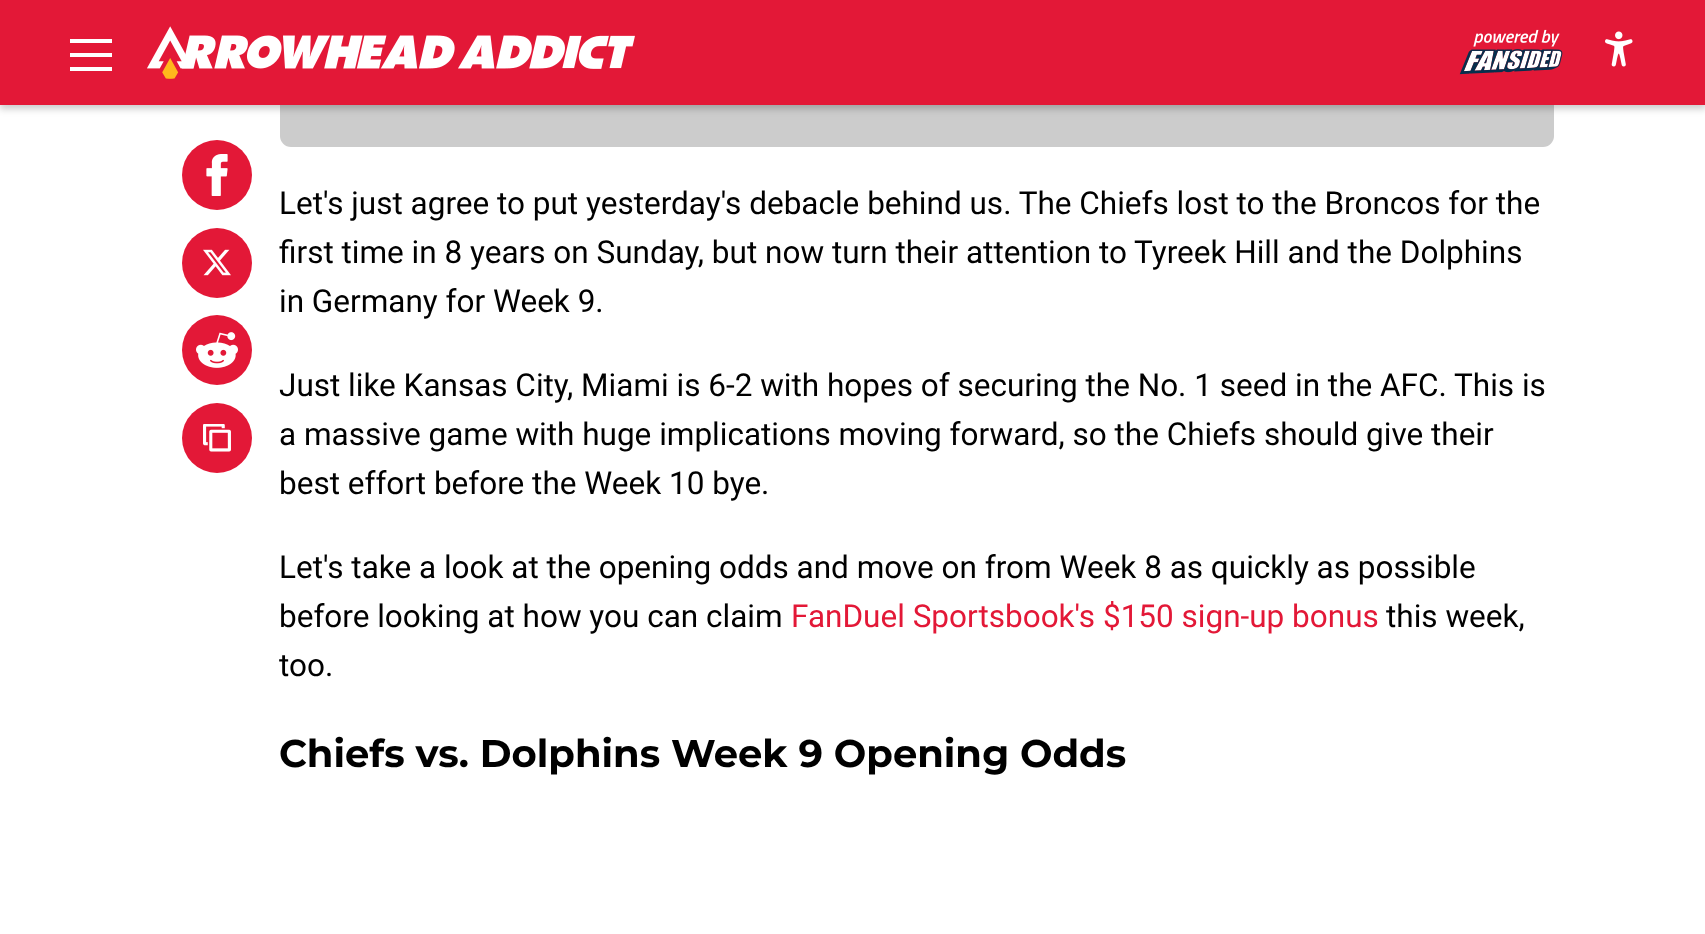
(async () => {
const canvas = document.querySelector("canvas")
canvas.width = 1705
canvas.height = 934
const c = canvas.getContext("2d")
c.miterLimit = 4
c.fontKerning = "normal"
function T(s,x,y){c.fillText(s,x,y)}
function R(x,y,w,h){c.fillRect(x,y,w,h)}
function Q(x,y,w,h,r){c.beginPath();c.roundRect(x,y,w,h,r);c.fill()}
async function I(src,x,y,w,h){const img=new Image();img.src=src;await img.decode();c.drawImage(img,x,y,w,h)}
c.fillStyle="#fff"
R(0,0,1705,934)
c.fillStyle="#ccc"
Q(280,-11,1274,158,11)
c.fillStyle="#00000033"
c.filter="blur(3.5px)"
c.beginPath()
c.rect(0,4,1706,105)
c.fill()
c.filter="none"
c.fillStyle="#e31837"
R(0,0,1705,105)
c.fillStyle="#fff"
R(70,39,42,4)
R(70,53,42,4)
R(70,67,42,4)
await I("1.png",147,26,488,53)
await I("2.png",1459,29,104,46)
await I("3.png",1605,31,28,36)
c.fillStyle="#e31837"
c.beginPath()
c.arc(217,175,35,0,7)
c.fill()
await I("4.png",206,154,22,42)
c.beginPath()
c.arc(217,263,35,0,7)
c.fill()
await I("5.png",203,249,28,27)
c.beginPath()
c.arc(217,350,35,0,7)
c.fill()
await I("6.png",196,332,42,36)
c.beginPath()
c.arc(217,438,35,0,7)
c.fill()
await I("7.png",203,424,28,28)
c.font="31.5px Roboto"
c.fillStyle="#000"
T("Let's just agree to put yesterday's debacle behind us. The Chiefs lost to the Broncos for the",279,214)
T("first time in 8 years on Sunday, but now turn their attention to Tyreek Hill and the Dolphins",279,263)
T("in Germany for Week 9.",279,312)
T("Just like Kansas City, Miami is 6-2 with hopes of securing the No. 1 seed in the AFC. This is",279,396)
T("a massive game with huge implications moving forward, so the Chiefs should give their",279,445)
T("best effort before the Week 10 bye.",279,494)
T("Let's take a look at the opening odds and move on from Week 8 as quickly as possible",279,578)
T("before looking at how you can claim",279,627)
c.fillStyle="#e31837"
T("FanDuel Sportsbook's $150 sign-up bonus",791,627)
c.fillStyle="#000"
T("this week,",1386,627)
T("too.",279,676)
c.font="100 38.5px Montserrat"
T("Chiefs vs. Dolphins Week 9 Opening Odds",279,767)
})()
